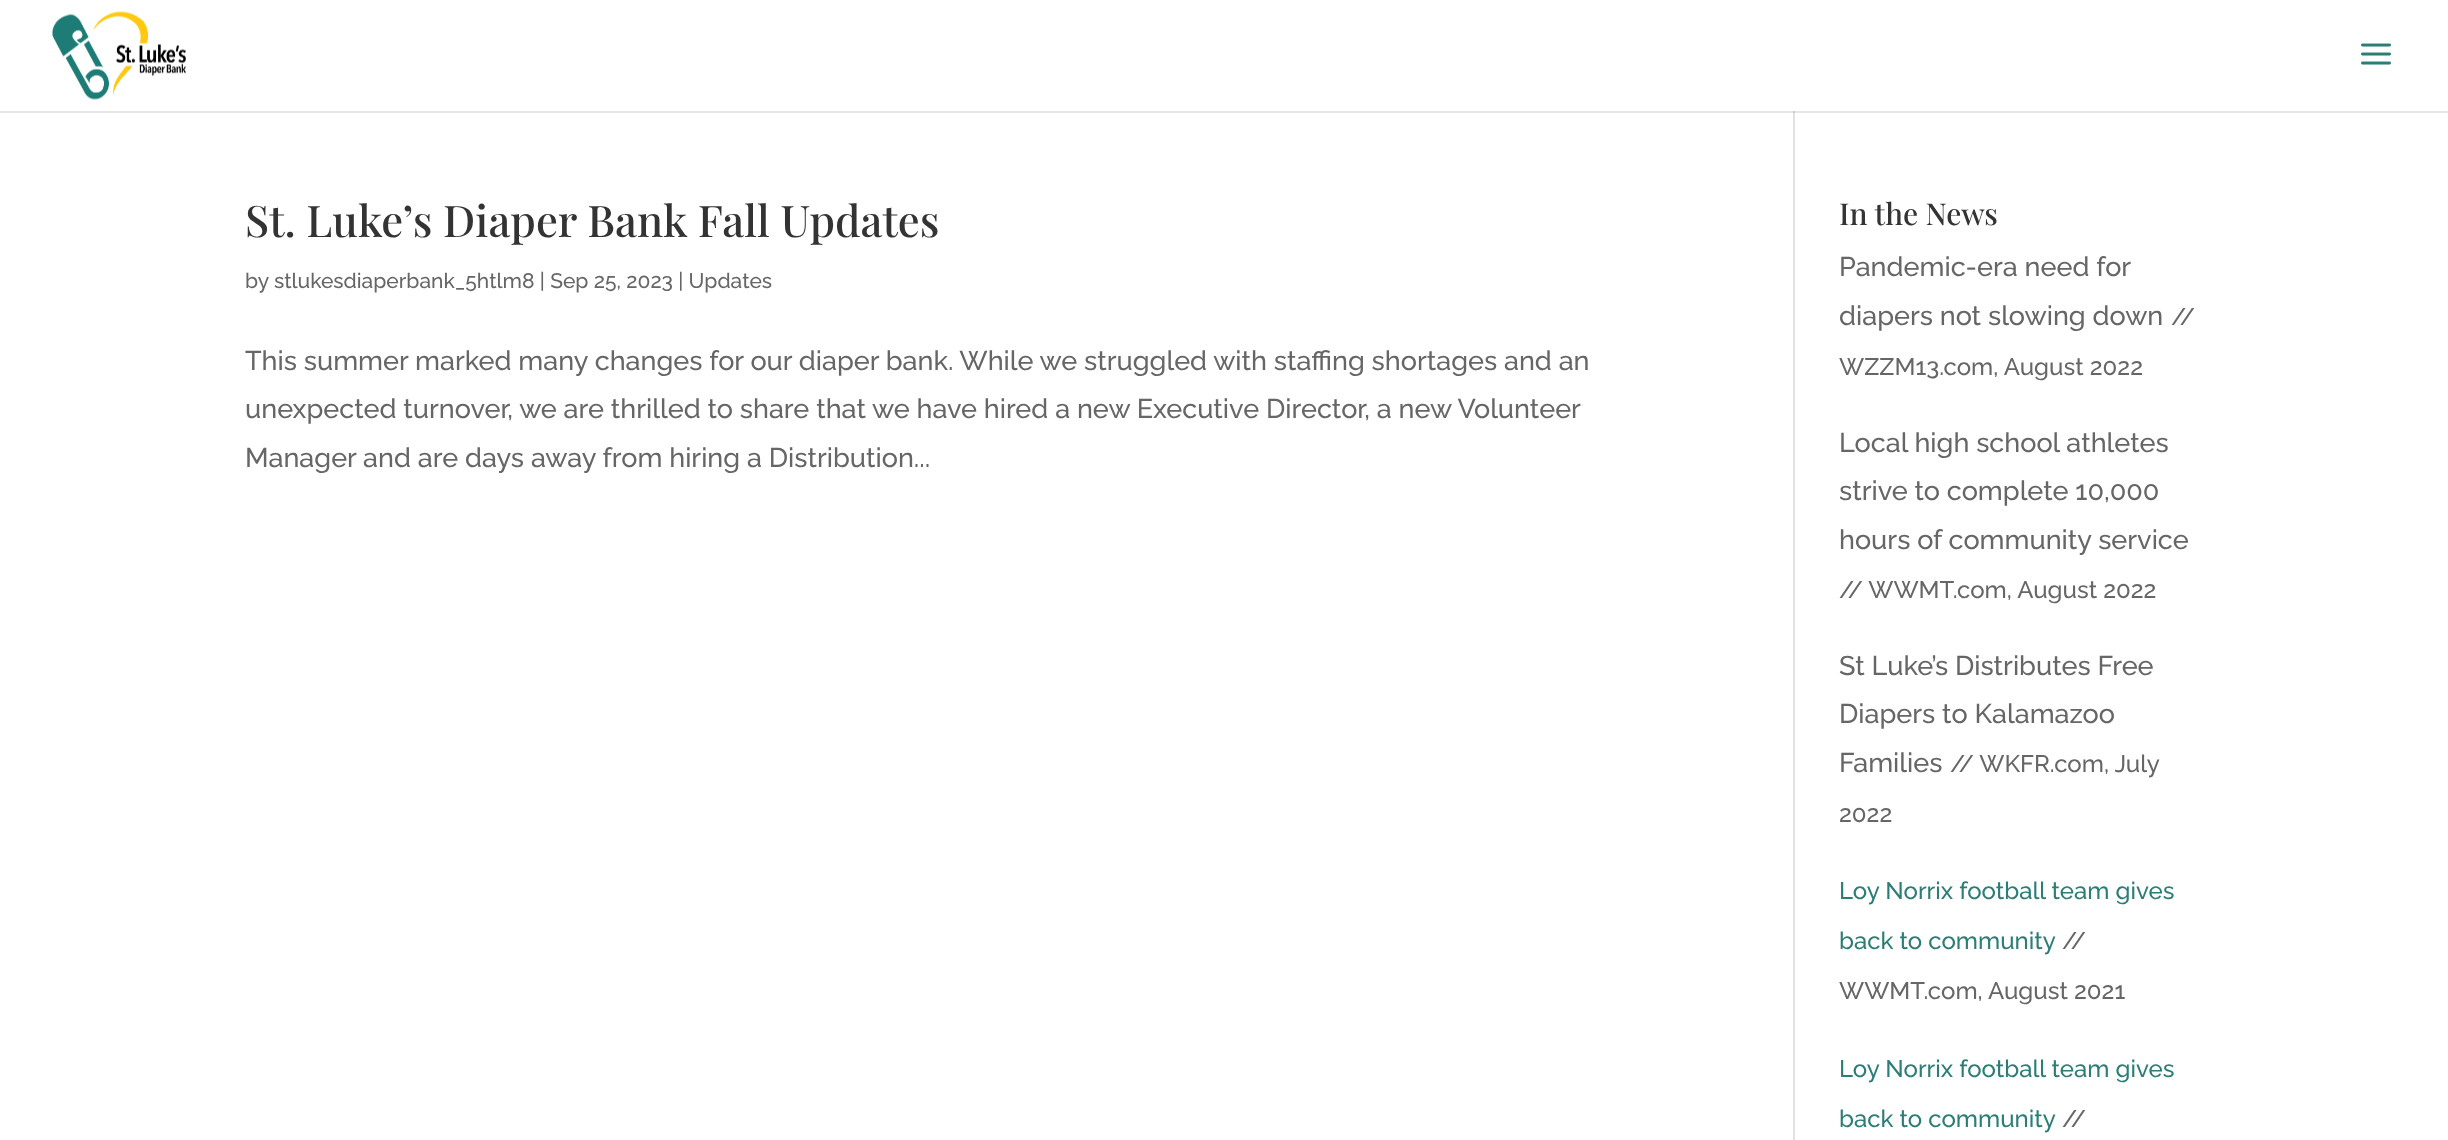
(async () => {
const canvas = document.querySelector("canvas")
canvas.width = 2448
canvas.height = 1140
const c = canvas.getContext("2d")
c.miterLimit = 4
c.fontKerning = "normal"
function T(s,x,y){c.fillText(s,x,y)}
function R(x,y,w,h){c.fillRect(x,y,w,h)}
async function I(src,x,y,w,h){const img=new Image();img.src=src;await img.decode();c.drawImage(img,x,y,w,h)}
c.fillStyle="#fff"
R(0,0,2448,1140)
c.fillStyle="#e6e6e6"
R(0,111,2448,2)
await I("1.png",52,11,134,89)
await I("2.png",2361,43,30,22)
c.fillStyle="#e2e2e2"
R(1793,111,2,1029)
c.fillStyle="#cbcbcb"
R(1793,111,2,2)
c.font="500 43.5px Playfair Display"
c.fillStyle="#333"
T("St. Luke’s Diaper Bank Fall Updates",245,237)
c.font="500 21px Raleway"
c.fillStyle="#666"
T("by stlukesdiaperbank_5htlm8 | Sep 25, 2023 | Updates",245,288)
c.font="500 27px Raleway"
T("This summer marked many changes for our diaper bank. While we struggled with staffing shortages and an",245,370)
T("unexpected turnover, we are thrilled to share that we have hired a new Executive Director, a new Volunteer",245,418)
T("Manager and are days away from hiring a Distribution...",245,467)
c.font="500 30px Playfair Display"
c.fillStyle="#333"
T("In the News",1839,225)
c.font="500 27px Raleway"
c.fillStyle="#666"
T("Pandemic-era need for",1839,276)
T("diapers not slowing down",1839,325)
c.font="500 24px Raleway"
T("//",2171,325)
T("WZZM13.com, August 2022",1839,375)
c.font="500 27px Raleway"
T("Local high school athletes",1839,452)
T("strive to complete 10,000",1839,500)
T("hours of community service",1839,549)
c.font="500 24px Raleway"
T("// WWMT.com, August 2022",1839,598)
c.font="500 27px Raleway"
T("St Luke’s Distributes Free",1839,675)
T("Diapers to Kalamazoo",1839,723)
T("Families",1839,772)
c.font="500 24px Raleway"
T("// WKFR.com, July",1950,772)
T("2022",1839,822)
c.fillStyle="#2b7d76"
T("Loy Norrix football team gives",1839,899)
T("back to community",1839,949)
c.fillStyle="#666"
T("//",2062,949)
T("WWMT.com, August 2021",1839,999)
c.fillStyle="#2b7d76"
T("Loy Norrix football team gives",1839,1077)
T("back to community",1839,1127)
c.fillStyle="#666"
T("//",2062,1127)
})()
